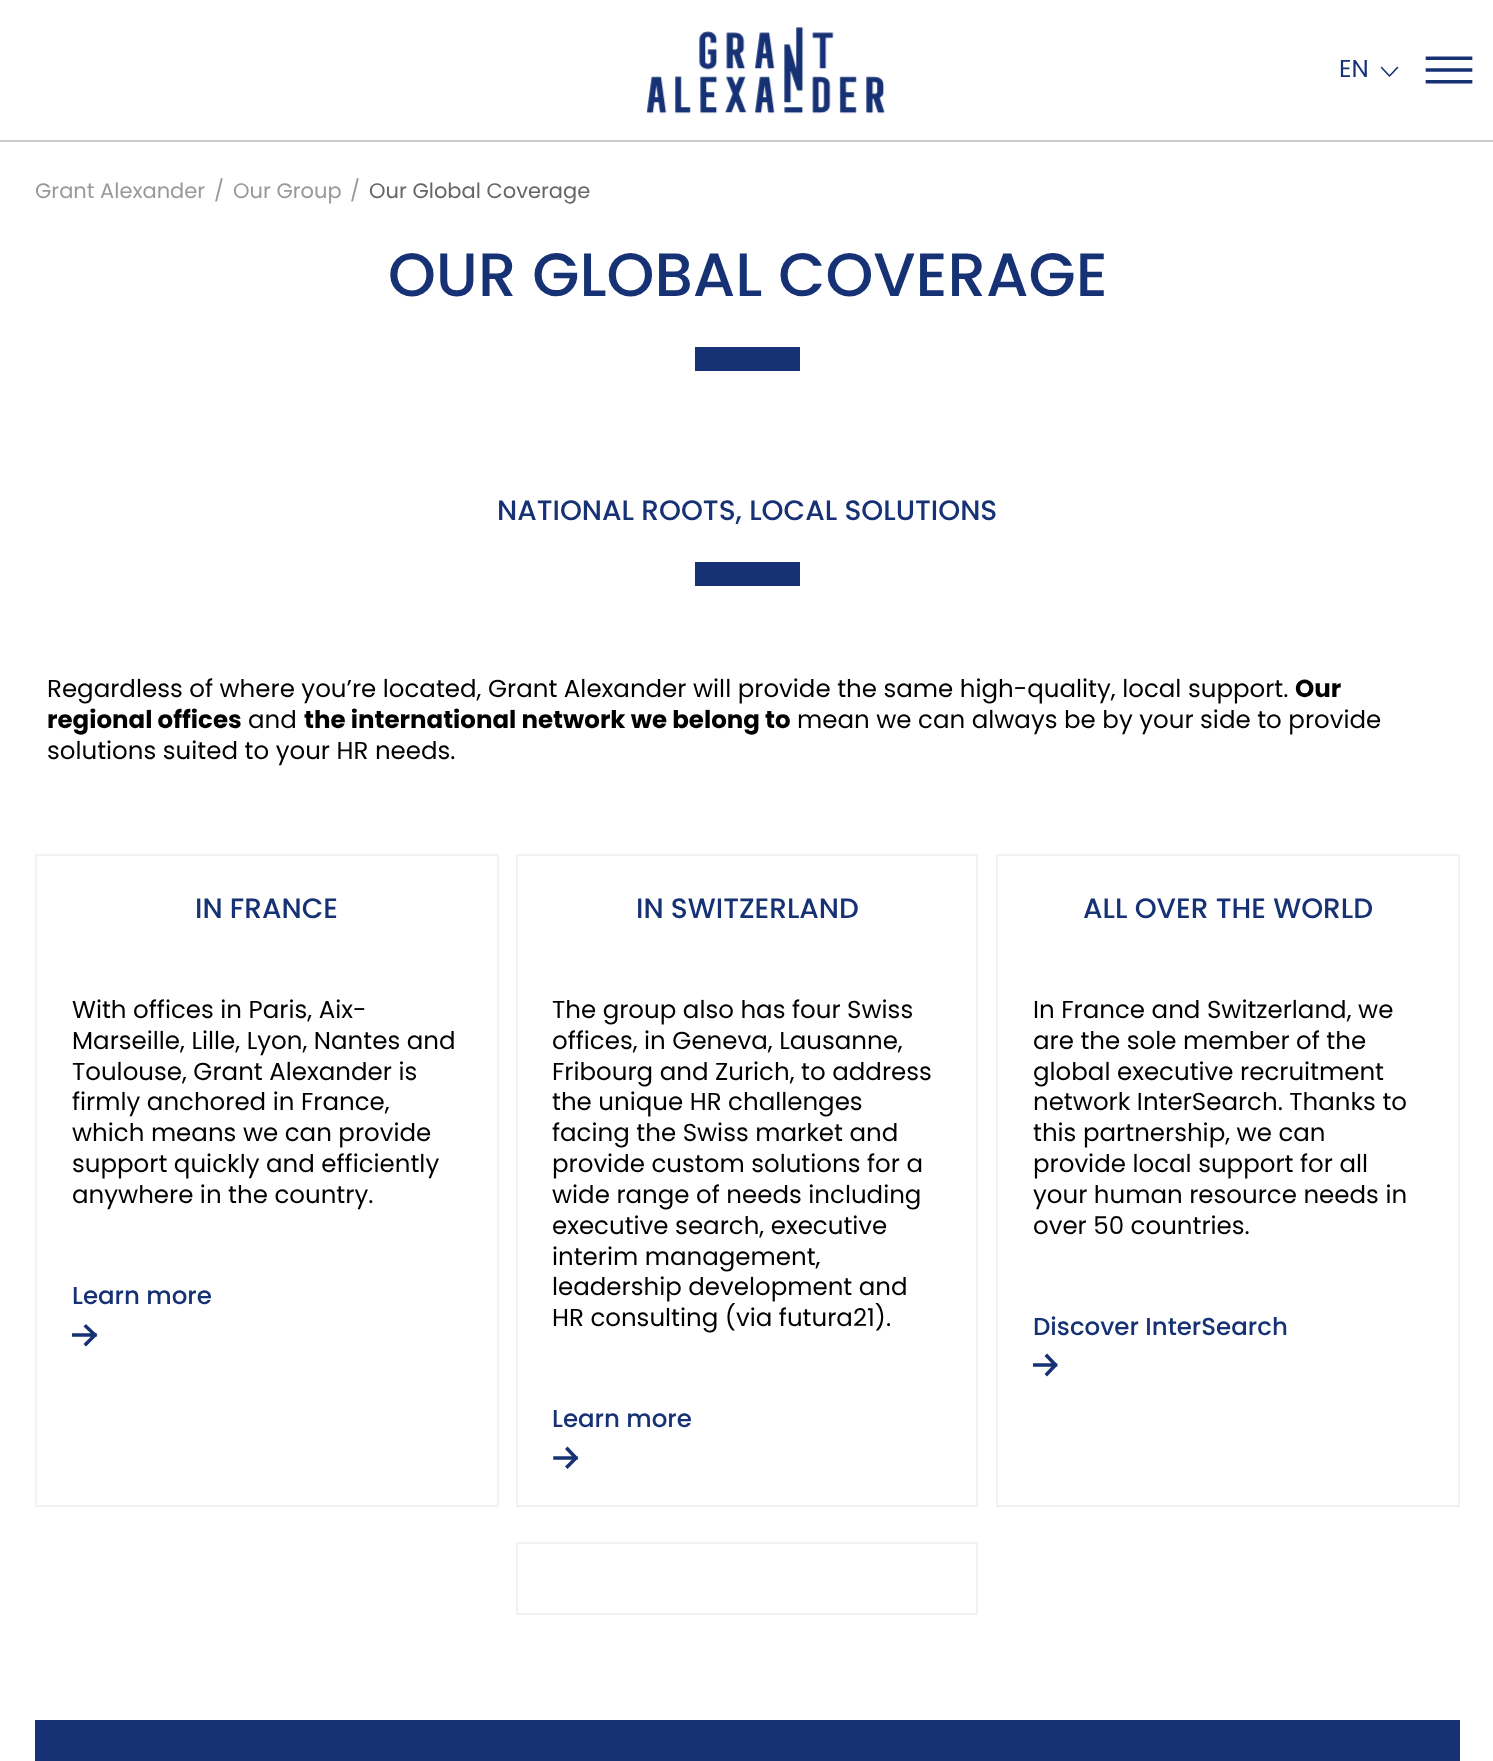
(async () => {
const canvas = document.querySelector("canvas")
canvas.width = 1493
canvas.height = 1761
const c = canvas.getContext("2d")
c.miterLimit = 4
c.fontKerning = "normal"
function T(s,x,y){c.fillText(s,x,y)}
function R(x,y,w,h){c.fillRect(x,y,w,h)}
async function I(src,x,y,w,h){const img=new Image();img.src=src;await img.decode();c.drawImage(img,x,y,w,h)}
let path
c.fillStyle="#fff"
R(0,0,1493,1761)
c.fillStyle="#ccc"
R(0,140,1493,2)
await I("1.png",646,27,239,87)
c.font="24.5px Poppins"
c.fillStyle="#163174"
T("EN",1339,77)
path = new Path2D("M1397.5 67.5l-8 8.5l-8-8.5")
c.strokeStyle="#163174"
c.lineWidth=1.6
c.lineCap="round"
c.lineJoin="round"
c.stroke(path)
await I("2.png",1425,56,48,28)
c.font="21px Poppins"
c.fillStyle="#999"
T("Grant Alexander",35,198)
T("/",214,198)
T("Our Group",233,198)
T("/",350,198)
c.fillStyle="#666"
T("Our Global Coverage",369,198)
c.font="500 61px Poppins"
c.fillStyle="#163174"
T("OUR GLOBAL COVERAGE",388,296)
R(695,347,105,24)
c.font="500 28px Poppins"
T("NATIONAL ROOTS, LOCAL SOLUTIONS",497,520)
R(695,562,105,24)
c.font="24.5px Poppins"
c.fillStyle="#000"
T("Regardless of where you’re located, Grant Alexander will provide the same high-quality, local support.",47,697)
c.font="bold 24.5px Poppins"
T("Our",1295,697)
T("regional offices",47,728)
c.font="24.5px Poppins"
T("and",248,728)
c.font="bold 24.5px Poppins"
T("the international network we belong to",304,728)
c.font="24.5px Poppins"
T("mean we can always be by your side to provide",797,728)
T("solutions suited to your HR needs.",47,759)
c.strokeStyle="#f2f2f2"
c.lineWidth=2
c.lineJoin="miter"
c.strokeRect(36,855,462,651)
c.font="500 28px Poppins"
c.fillStyle="#163174"
T("IN FRANCE",195,918)
c.font="24.5px Poppins"
c.fillStyle="#000"
T("With offices in Paris, Aix-",72,1018)
T("Marseille, Lille, Lyon, Nantes and",72,1049)
T("Toulouse, Grant Alexander is",72,1080)
T("firmly anchored in France,",72,1110)
T("which means we can provide",72,1141)
T("support quickly and efficiently",72,1172)
T("anywhere in the country.",72,1203)
c.save()
c.beginPath()
c.rect(72,1323,26,25)
c.clip()
path = new Path2D("M73.5 1335h21.5m0 0l-9-8.5m9 8.5l-9 9")
c.strokeStyle="#163174"
c.lineWidth=3.5
c.lineCap="square"
c.stroke(path)
c.restore()
c.font="500 24.5px Poppins"
c.fillStyle="#163174"
T("Learn more",72,1304)
c.strokeRect(517,855,460,651)
c.font="500 28px Poppins"
T("IN SWITZERLAND",636,918)
c.font="24.5px Poppins"
c.fillStyle="#000"
T("The group also has four Swiss",552,1018)
T("offices, in Geneva, Lausanne,",552,1049)
T("Fribourg and Zurich, to address",552,1080)
T("the unique HR challenges",552,1110)
T("facing the Swiss market and",552,1141)
T("provide custom solutions for a",552,1172)
T("wide range of needs including",552,1203)
T("executive search, executive",552,1234)
T("interim management,",552,1265)
T("leadership development and",552,1295)
T("HR consulting (via futura21).",552,1326)
path = new Path2D("M555 1458h21m0 0l-8.5-9m8.5 9l-8.5 8.5")
c.strokeStyle="#163174"
c.lineWidth=3.5
c.lineCap="square"
c.stroke(path)
c.font="500 24.5px Poppins"
c.fillStyle="#163174"
T("Learn more",552,1427)
c.strokeStyle="#f2f2f2"
c.lineWidth=2
c.strokeRect(997,855,462,651)
c.font="500 28px Poppins"
T("ALL OVER THE WORLD",1083,918)
c.font="24.5px Poppins"
c.fillStyle="#000"
T("In France and Switzerland, we",1033,1018)
T("are the sole member of the",1033,1049)
T("global executive recruitment",1033,1080)
T("network InterSearch. Thanks to",1033,1110)
T("this partnership, we can",1033,1141)
T("provide local support for all",1033,1172)
T("your human resource needs in",1033,1203)
T("over 50 countries.",1033,1234)
c.save()
c.beginPath()
c.rect(1033,1353,26,24)
c.clip()
path = new Path2D("M1034 1365h21.5m0 0l-8.5-9m8.5 9l-8.5 9")
c.strokeStyle="#163174"
c.lineWidth=3.5
c.stroke(path)
c.restore()
c.font="500 24.5px Poppins"
c.fillStyle="#163174"
T("Discover InterSearch",1033,1335)
c.strokeRect(517,1543,460,71)
R(35,1720,1425,41)
})()
